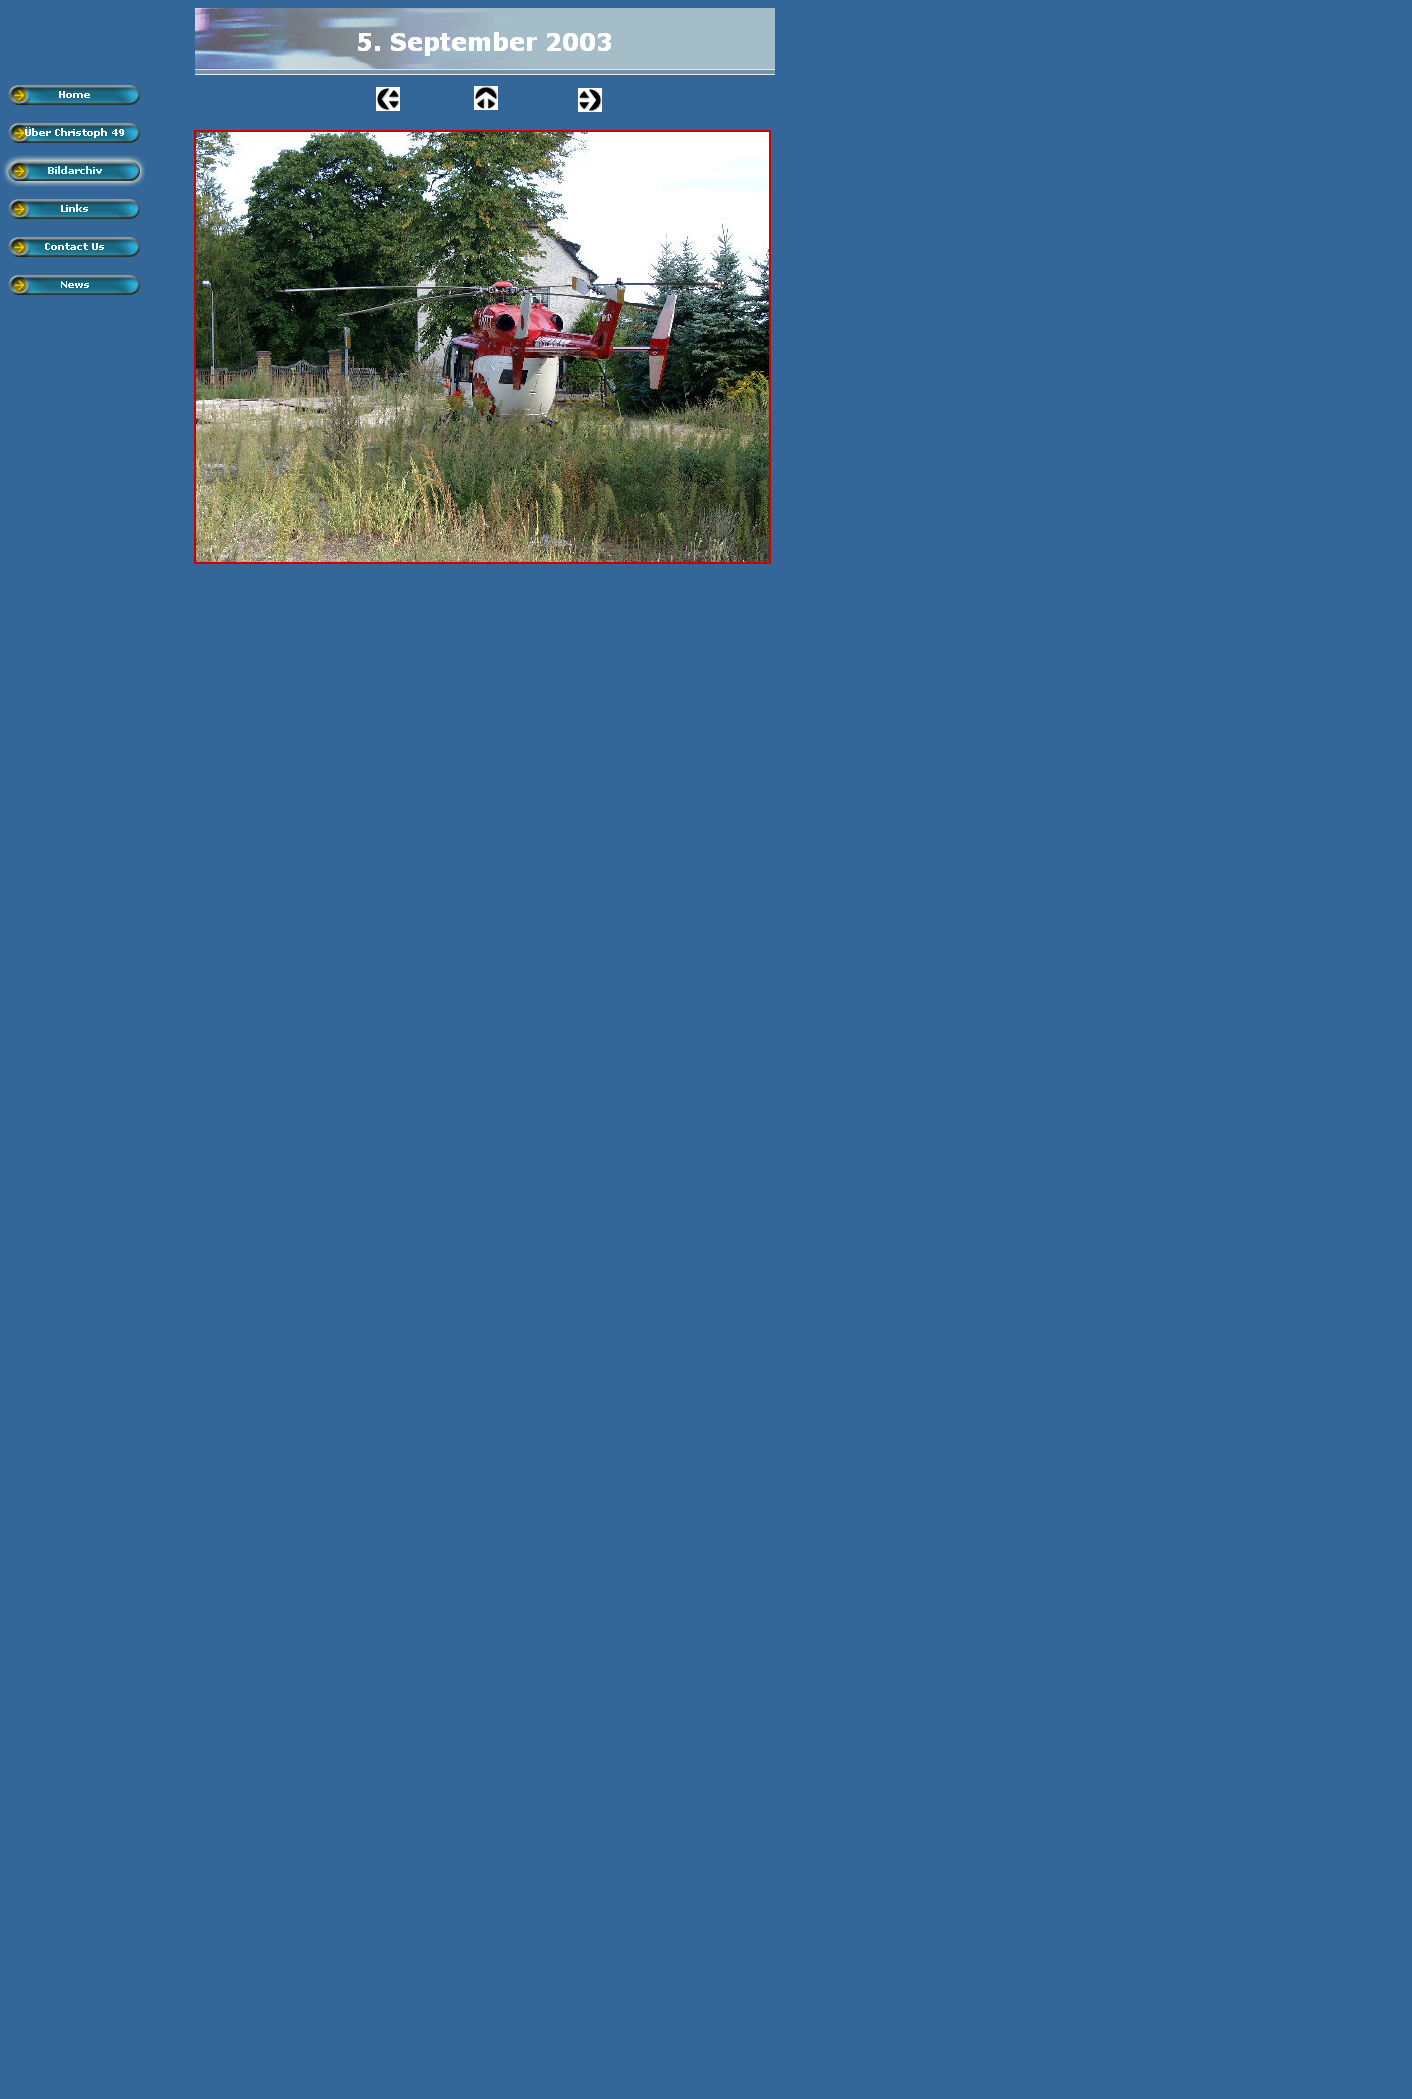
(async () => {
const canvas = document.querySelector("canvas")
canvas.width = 1412
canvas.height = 2099
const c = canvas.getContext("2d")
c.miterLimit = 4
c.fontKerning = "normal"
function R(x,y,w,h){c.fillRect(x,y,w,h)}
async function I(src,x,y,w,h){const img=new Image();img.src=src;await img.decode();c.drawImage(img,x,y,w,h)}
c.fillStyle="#369"
R(0,0,1412,2099)
await I("1.png",195,8,580,67)
await I("2.png",8,85,132,20)
await I("3.png",8,123,132,20)
await I("4.png",2,155,144,32)
await I("5.png",8,199,132,20)
await I("6.png",8,237,132,20)
await I("7.png",8,275,132,20)
await I("8.png",376,87,24,24)
await I("9.png",474,86,24,24)
await I("10.png",578,88,24,24)
c.strokeStyle="#c00"
c.strokeRect(194.5,130.5,576,433)
c.strokeRect(195.5,131.5,574,431)
await I("11.png",196,132,573,430)
})()
